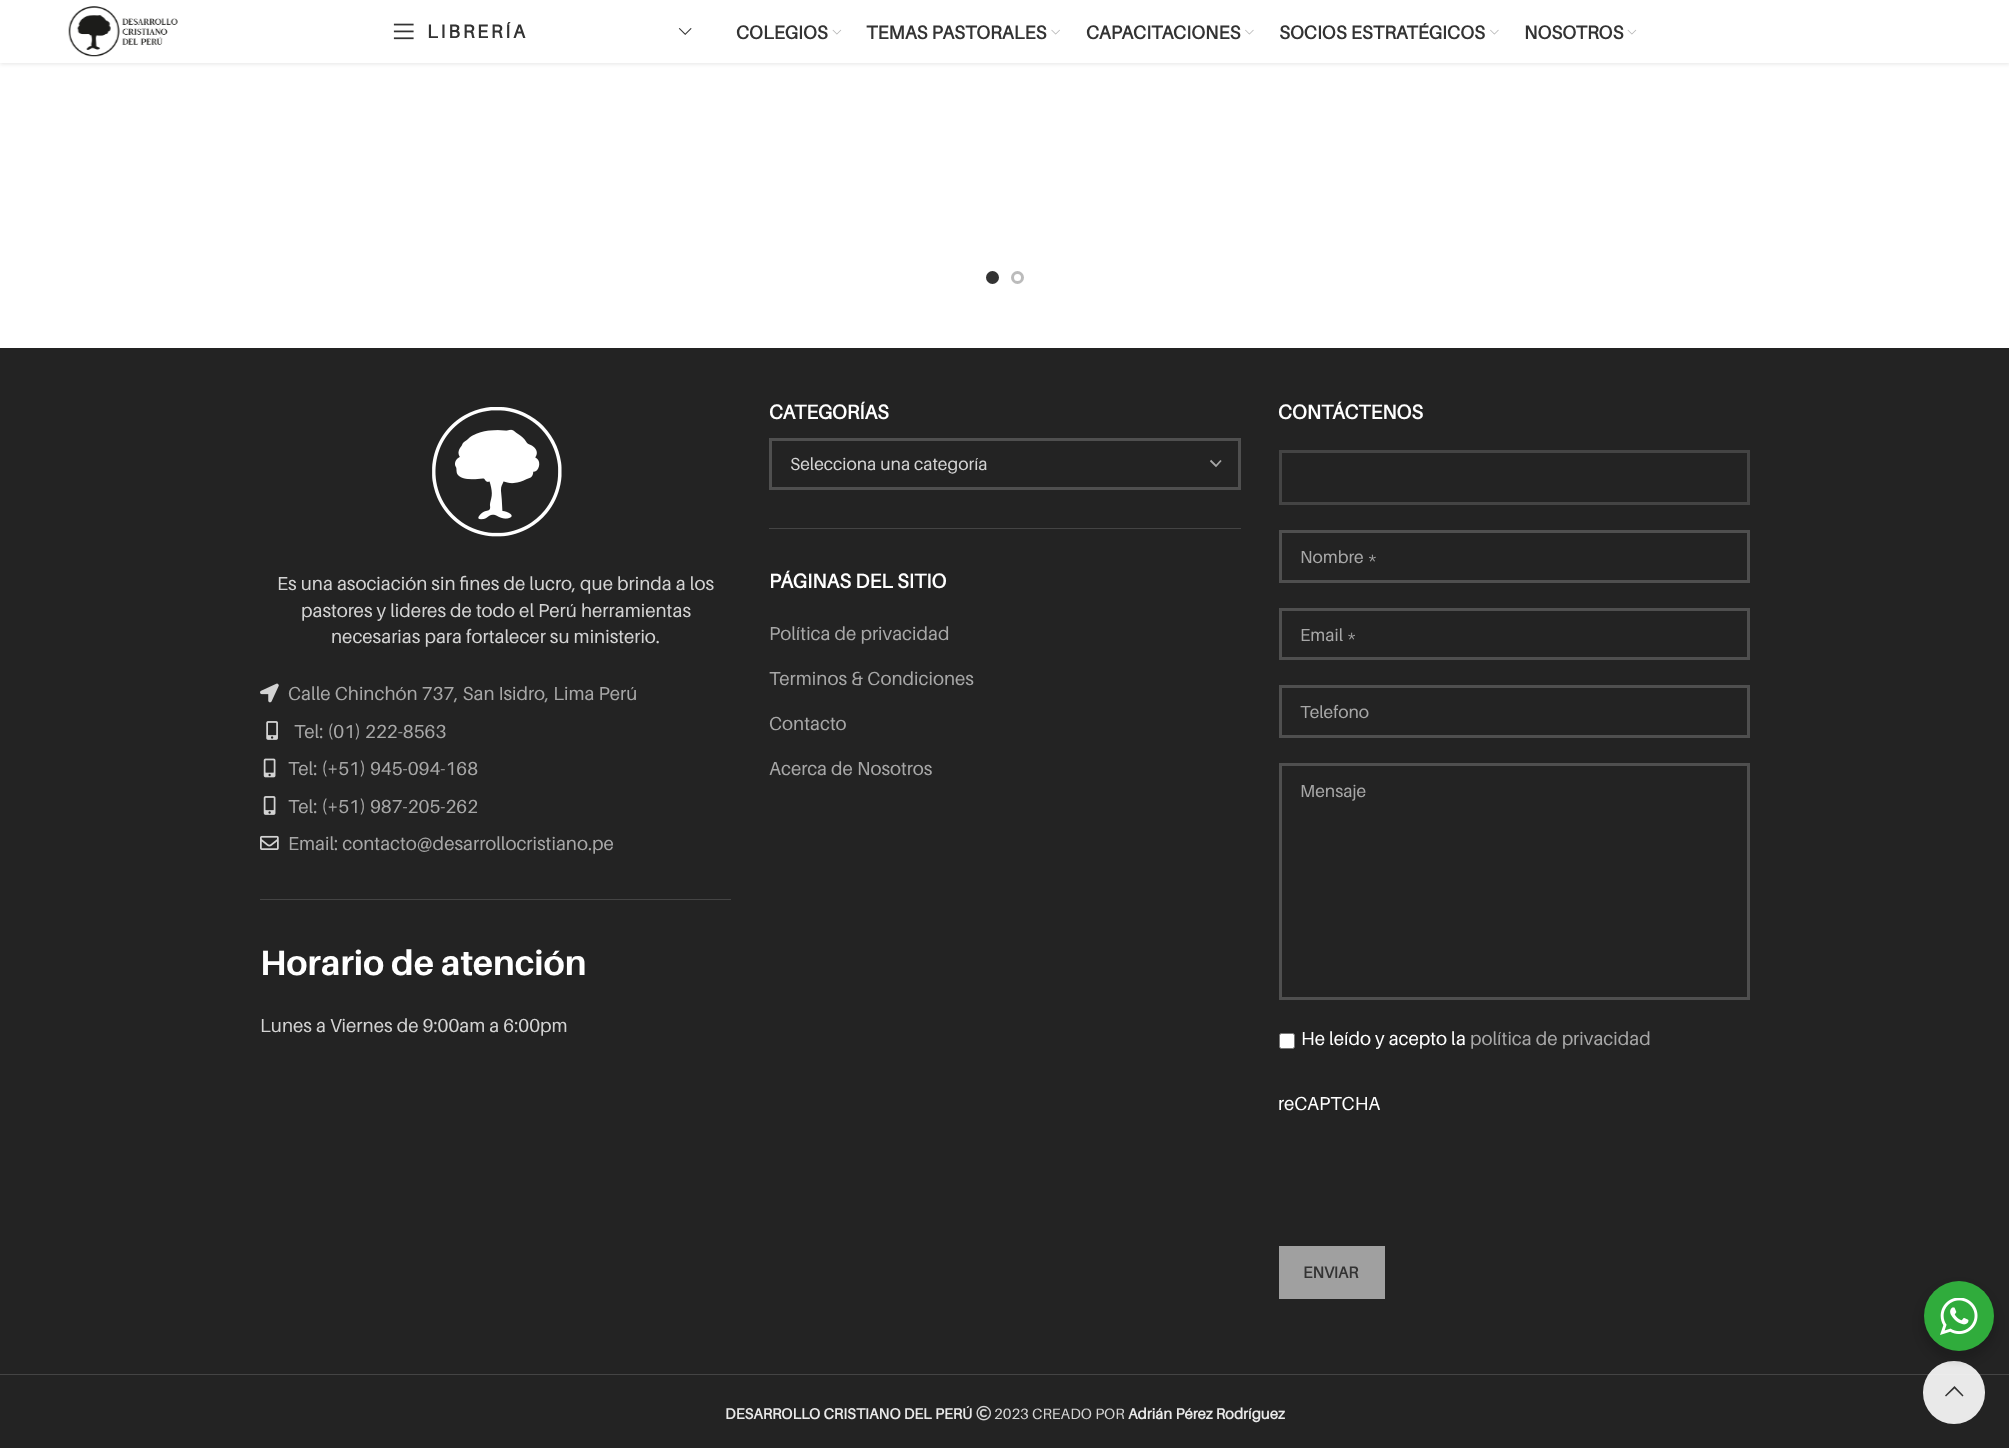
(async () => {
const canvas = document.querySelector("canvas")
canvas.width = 2009
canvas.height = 1448
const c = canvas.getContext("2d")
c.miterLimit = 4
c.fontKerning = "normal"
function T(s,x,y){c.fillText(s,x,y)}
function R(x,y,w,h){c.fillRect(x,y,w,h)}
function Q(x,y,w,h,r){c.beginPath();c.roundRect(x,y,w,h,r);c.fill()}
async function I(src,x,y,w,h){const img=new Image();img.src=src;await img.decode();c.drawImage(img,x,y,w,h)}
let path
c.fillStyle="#fff"
R(0,0,2009,1448)
c.fillStyle="#0000001a"
c.filter="blur(2px)"
c.beginPath()
c.rect(0,1,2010,63)
c.fill()
c.filter="none"
c.fillStyle="#fff"
R(0,0,2009,63)
await I("1.png",68,6,110,51)
await I("2.png",393,23,21,17)
c.letterSpacing="2.75px"
c.font="bold 18.75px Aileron"
c.fillStyle="#333"
T("LIBRERÍA",427,38)
await I("3.png",678,28,14,7)
c.letterSpacing="0px"
T("COLEGIOS",736,39)
await I("4.png",832,29,10,6)
T("TEMAS PASTORALES",866,39)
await I("5.png",1051,29,9,6)
T("CAPACITACIONES",1086,39)
await I("6.png",1245,29,9,6)
T("SOCIOS ESTRATÉGICOS",1279,39)
await I("6.png",1490,29,9,6)
T("NOSOTROS",1524,39)
await I("4.png",1627,29,10,6)
c.beginPath()
c.arc(992.5,277.5,5,0,7)
c.fill()
c.strokeStyle="#333"
c.lineWidth=3
c.stroke()
c.beginPath()
c.arc(1017.5,277.5,5,0,7)
c.strokeStyle="#bbb"
c.stroke()
c.fillStyle="#232323"
R(0,348,2009,1100)
c.fillStyle="#444"
R(260,899,471,1)
await I("7.png",432,407,130,130)
c.font="18.75px Aileron"
c.fillStyle="#d3d3d3"
T("Es una asociación sin fines de lucro, que brinda a los",277,590)
T("pastores y lideres de todo el Perú herramientas",301,617)
T("necesarias para fortalecer su ministerio.",331,643)
await I("8.png",260,683,19,20)
c.fillStyle="#a7a7a7"
T("Calle Chinchón 737, San Isidro, Lima Perú",288,700)
await I("9.png",266,721,12,19)
T("Tel: (01) 222-8563",294,738)
await I("10.png",263,758,13,20)
T("Tel: (+51) 945-094-168",288,775)
await I("11.png",263,796,13,19)
T("Tel: (+51) 987-205-262",288,813)
await I("12.png",260,835,19,15)
T("Email: contacto@desarrollocristiano.pe",288,850)
c.font="bold 35px 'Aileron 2'"
c.fillStyle="#fff"
T("Horario de atención",260,975)
c.font="18.75px Aileron"
c.fillStyle="#d3d3d3"
T("Lunes a Viernes de 9:00am a 6:00pm",260,1032)
c.fillStyle="#444"
R(769,528,472,1)
c.font="bold 20px Aileron"
c.fillStyle="#fff"
T("CATEGORÍAS",769,419)
c.strokeStyle="#4f4f4f"
c.strokeRect(770.5,439.5,469,49)
c.font="17.5px Aileron"
c.fillStyle="#d3d3d3"
T("Selecciona una categoría",790,470)
path = new Path2D("M1210.5 460.5l5.5 5.5l5-5.5")
c.strokeStyle="#a7a7a7"
c.lineWidth=1.8
c.stroke(path)
c.font="bold 20px Aileron"
c.fillStyle="#fff"
T("PÁGINAS DEL SITIO",769,588)
c.font="18.75px Aileron"
c.fillStyle="#a7a7a7"
T("Política de privacidad",769,640)
T("Terminos & Condiciones",769,685)
T("Contacto",769,730)
T("Acerca de Nosotros",769,775)
c.font="bold 20px Aileron"
c.fillStyle="#fff"
T("CONTÁCTENOS",1278,419)
c.strokeStyle="#444"
c.lineWidth=3
c.strokeRect(1280.5,451.5,468,52)
c.strokeStyle="#4f4f4f"
c.strokeRect(1280.5,531.5,468,50)
c.font="17.5px Aileron"
c.fillStyle="#a7a7a7"
T("Nombre *",1300,563)
c.strokeRect(1280.5,609.5,468,49)
T("Email *",1300,641)
c.strokeRect(1280.5,686.5,468,50)
T("Telefono",1300,718)
c.strokeRect(1280.5,764.5,468,234)
T("Mensaje",1300,797)
c.fillStyle="#fff"
c.beginPath()
c.roundRect(1279.5,1033.5,15,15,2)
c.fill()
c.strokeStyle="#767676"
c.lineWidth=1
c.stroke()
c.font="18.75px Aileron"
T("He leído y acepto la",1301,1045)
c.fillStyle="#a7a7a7"
T("política de privacidad",1470,1045)
c.fillStyle="#fff"
T("reCAPTCHA",1278,1110)
c.fillStyle="#a0a0a0"
R(1279,1246,106,53)
c.font="bold 16px Aileron"
c.fillStyle="#333"
T("ENVIAR",1303,1278)
c.fillStyle="#444"
R(0,1374,2009,1)
c.font="bold 15px Aileron"
c.fillStyle="#e9e9e9"
T("DESARROLLO CRISTIANO DEL PERÚ",725,1419)
await I("13.png",976,1405,15,16)
c.font="15px Aileron"
c.fillStyle="#d3d3d3"
T("2023 CREADO POR",994,1419)
c.font="bold 15px Aileron"
c.fillStyle="#e9e9e9"
T("Adrián Pérez Rodríguez",1128,1419)
c.fillStyle="#ffffffe6"
Q(1923,1361,62,63,31)
c.fillStyle="#00000024"
c.filter="blur(5px)"
c.beginPath()
c.roundRect(1921,1286,75,75,37.5)
c.fill()
c.filter="none"
c.fillStyle="#30ac3c"
c.beginPath()
c.arc(1959,1316,35,0,7)
c.fill()
await I("14.png",1940,1298,38,37)
c.fillStyle="#333"
path = new Path2D("M1962.5 1396.5l1-1l-9-9.5l-9.5 9.5l1 1l8.5-8z")
c.fill(path)
})()
